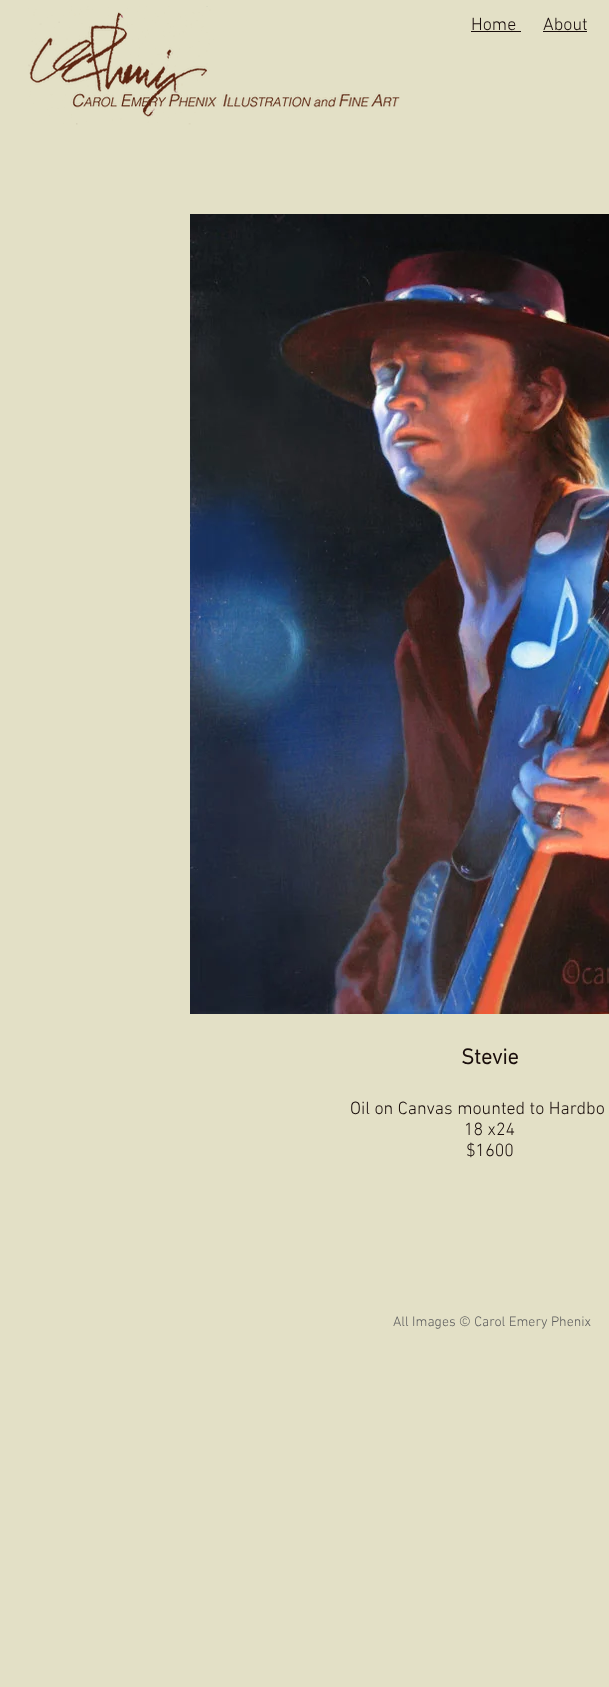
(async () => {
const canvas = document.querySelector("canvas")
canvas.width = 609
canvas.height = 1687
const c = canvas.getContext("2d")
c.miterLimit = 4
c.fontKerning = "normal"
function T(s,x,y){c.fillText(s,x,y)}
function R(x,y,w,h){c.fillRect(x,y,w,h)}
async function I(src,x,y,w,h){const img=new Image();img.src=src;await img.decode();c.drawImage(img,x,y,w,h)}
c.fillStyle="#e3e0c6"
R(0,0,609,1687)
await I("1.png",28,6,372,119)
c.font="300 18px 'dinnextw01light'"
c.fillStyle="#1a0e0c"
T("Home",471,30)
R(471,31,50,1)
T("About",543,30)
R(543,31,44,1)
await I("2.png",190,214,419,800)
c.font="bold 22px 'dinnextw01light'"
T("Stevie",461,1064)
c.font="300 18px 'dinnextw01light'"
T("Oil on Canvas mounted to Hardbo",350,1114)
T("18 x24",464,1135)
T("$1600",466,1156)
c.font="300 14px 'dinnextw01light'"
c.fillStyle="#606060"
T("All Images © Carol Emery Phenix",393,1326)
})()
